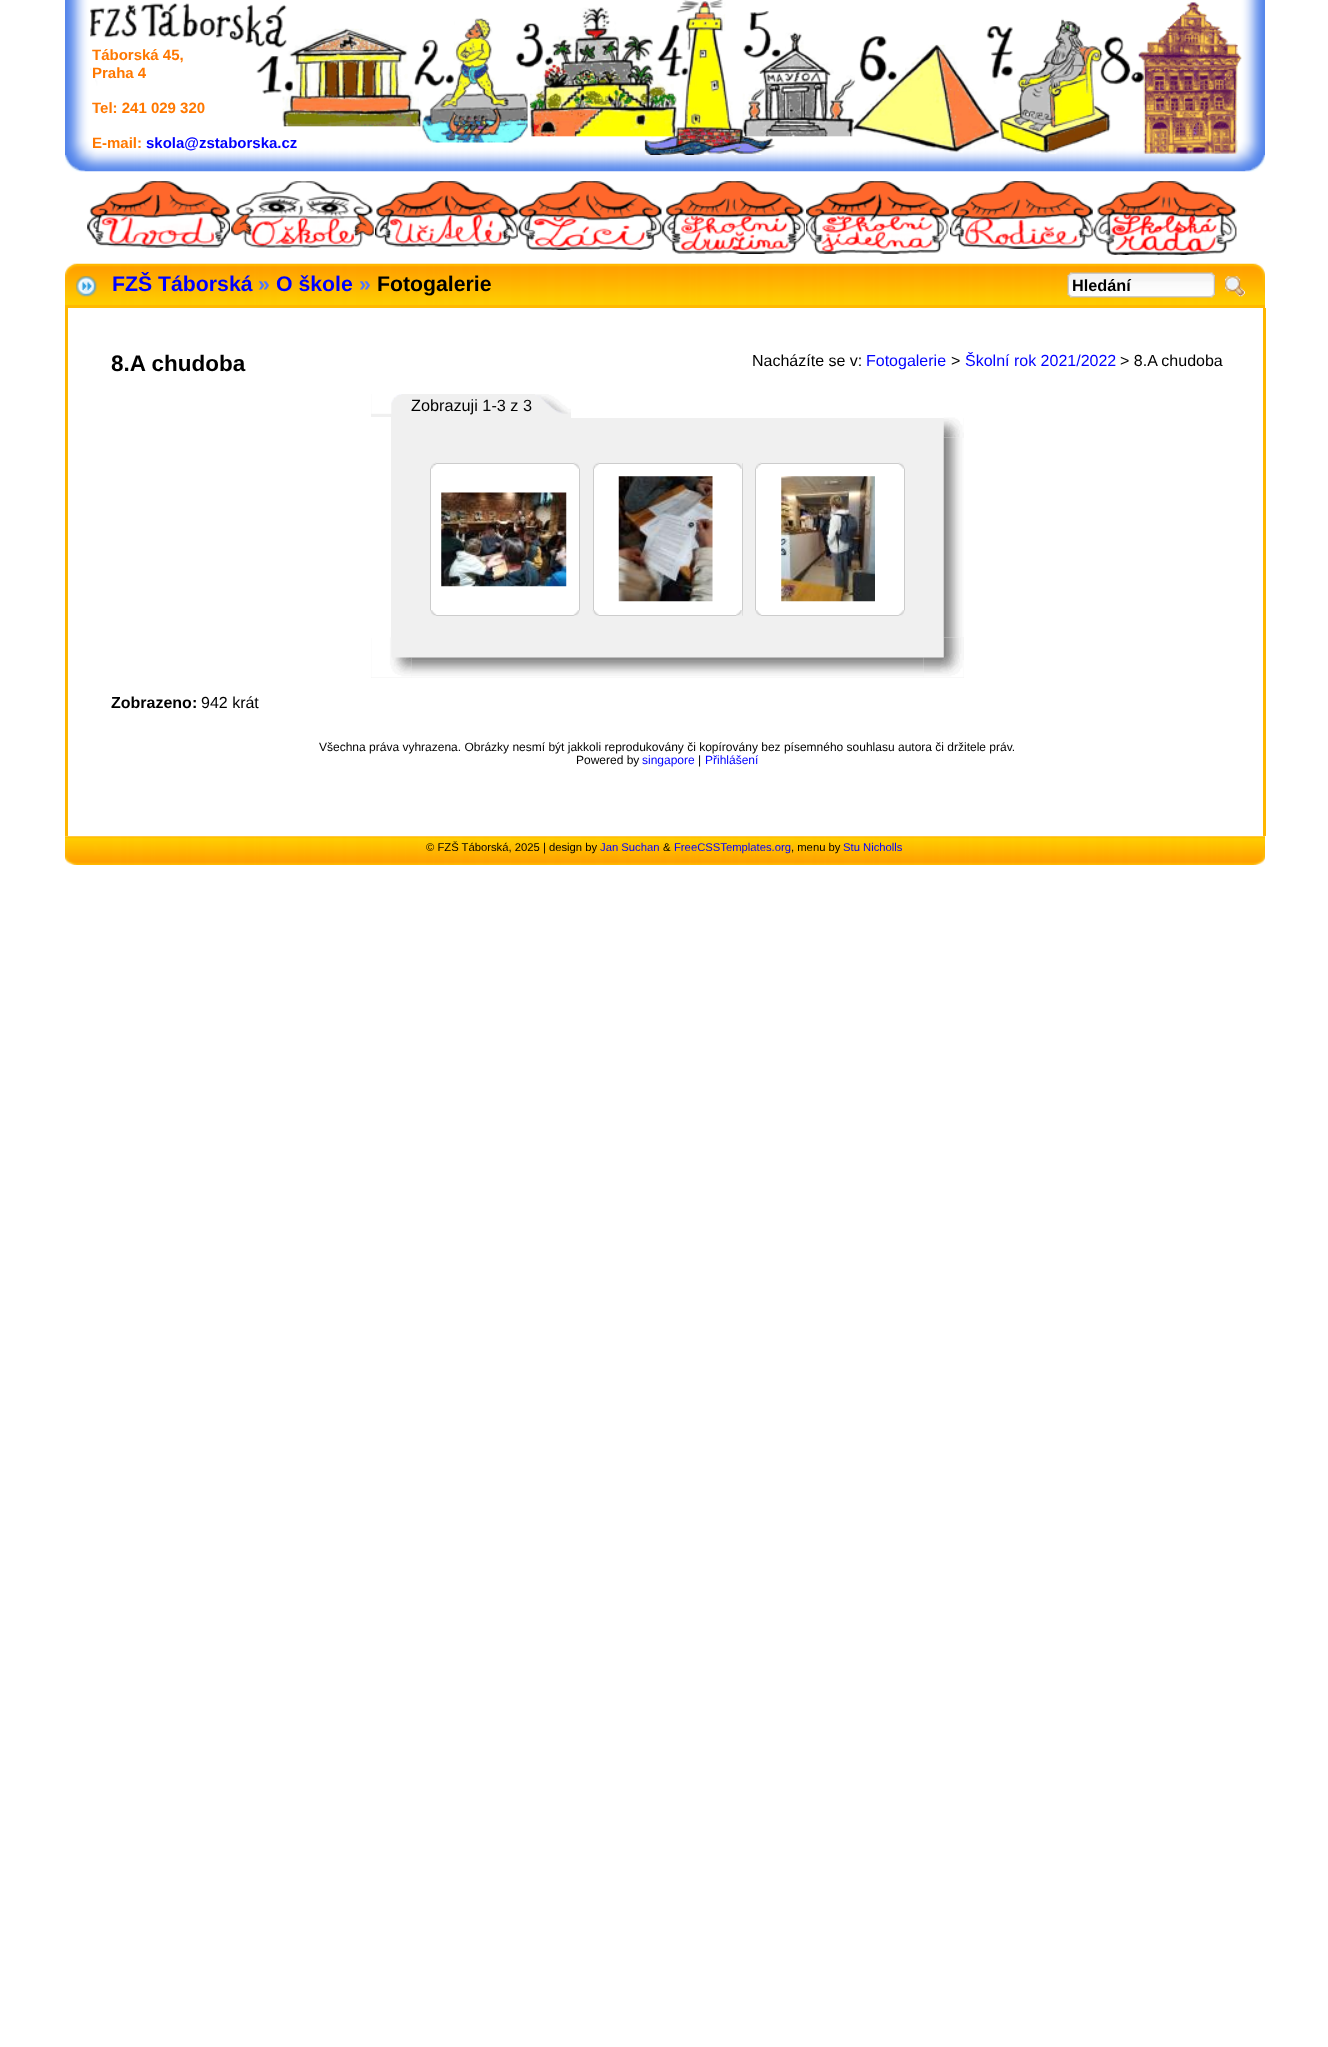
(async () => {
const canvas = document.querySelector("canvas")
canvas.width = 1328
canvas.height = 2047
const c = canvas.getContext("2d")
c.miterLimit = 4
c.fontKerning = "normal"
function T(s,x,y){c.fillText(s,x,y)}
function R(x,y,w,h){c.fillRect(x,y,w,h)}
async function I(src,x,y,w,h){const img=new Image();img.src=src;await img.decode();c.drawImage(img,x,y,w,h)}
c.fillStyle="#fff"
R(0,0,1328,2047)
await I("1.png",65,0,1200,172)
await I("2.png",90,0,1152,155)
c.font="bold 15px Liberation Sans"
c.fillStyle="#ff7800"
T("Táborská 45,",92,60)
T("Praha 4",92,78)
T("Tel: 241 029 320",92,113)
T("E-mail:",92,148)
c.fillStyle="#00f"
T("skola@zstaborska.cz",146,148)
await I("3.png",87,181,143,67)
await I("4.png",87,181,143,67)
await I("5.png",231,181,143,67)
await I("6.png",375,181,143,66)
await I("7.png",375,181,143,66)
await I("8.png",518,181,144,69)
await I("9.png",518,181,144,69)
await I("10.png",662,181,143,73)
await I("11.png",662,181,143,73)
await I("12.png",806,181,143,73)
await I("13.png",806,181,143,73)
await I("14.png",950,181,143,68)
await I("15.png",950,181,143,68)
await I("16.png",1093,181,144,57)
await I("17.png",1093,181,144,74)
c.fillStyle="#ffb900"
R(65,305,1200,3)
await I("18.png",65,263,1200,42)
c.font="bold 21.25px Liberation Sans"
c.fillStyle="#00f"
T("FZŠ Táborská",112,291)
c.fillStyle="#5176ff"
T("»",258,291)
c.fillStyle="#00f"
T("O škole",276,291)
c.fillStyle="#5176ff"
T("»",359,291)
c.fillStyle="#000"
T("Fotogalerie",377,291)
await I("19.png",1067,272,148,26)
c.font="bold 16.25px Liberation Sans"
T("Hledání",1072,291)
await I("20.png",1225,276,20,21)
c.fillStyle="#ffb700"
R(1263,308,3,528)
R(65,308,3,528)
c.font="bold 22.5px Liberation Sans"
c.fillStyle="#000"
T("8.A chudoba",111,371)
c.font="16px Liberation Sans"
T("Nacházíte se v:",752,366)
c.fillStyle="#00f"
T("Fotogalerie",866,366)
c.fillStyle="#000"
T(">",951,366)
c.fillStyle="#00f"
T("Školní rok 2021/2022",965,366)
c.fillStyle="#000"
T("> 8.A chudoba",1120,366)
c.fillStyle="#f0f0f0"
R(371,394,593,284)
await I("21.png",371,394,31,20)
c.fillStyle="#fff"
R(571,394,393,24)
c.font="16.25px Liberation Sans"
c.fillStyle="#000"
T("Zobrazuji 1-3 z 3",411,411)
await I("22.png",535,394,36,20)
c.fillStyle="#fff"
R(371,417,20,221)
await I("23.png",943,417,21,21)
c.beginPath()
c.rect(430.5,463.5,149,152)
c.fill()
c.strokeStyle="#ccc"
c.stroke()
await I("24.png",430,462,7,7)
await I("25.png",573,462,7,7)
await I("26.png",441,492,126,95)
await I("27.png",430,610,7,6)
await I("28.png",573,610,7,6)
c.beginPath()
c.rect(593.5,463.5,149,152)
c.fill()
c.stroke()
await I("29.png",592,462,7,7)
await I("30.png",736,462,7,7)
await I("31.png",618,476,95,126)
await I("32.png",592,610,7,6)
await I("33.png",736,610,7,6)
c.beginPath()
c.rect(755.5,463.5,149,152)
c.fill()
c.stroke()
await I("24.png",755,462,7,7)
await I("25.png",898,462,7,7)
await I("34.png",781,476,94,126)
await I("27.png",755,610,7,6)
await I("28.png",898,610,7,6)
await I("35.png",943,437,21,201)
await I("36.png",371,637,41,41)
await I("37.png",411,657,513,21)
await I("38.png",923,637,41,41)
c.font="bold 16px Liberation Sans"
c.fillStyle="#000"
T("Zobrazeno:",111,708)
c.font="16px Liberation Sans"
T("942 krát",201,708)
c.font="12px Liberation Sans"
T("Všechna práva vyhrazena. Obrázky nesmí být jakkoli reprodukovány či kopírovány bez písemného souhlasu autora či držitele práv.",319,751)
T("Powered by",576,764)
c.fillStyle="#00f"
T("singapore",642,764)
c.fillStyle="#000"
T("|",698,764)
c.fillStyle="#00f"
T("Přihlášení",705,764)
await I("39.png",65,836,1200,29)
c.font="11.25px Liberation Sans"
c.fillStyle="#000"
T("© FZŠ Táborská, 2025 | design by",426,851)
c.fillStyle="#00f"
T("Jan Suchan",600,851)
c.fillStyle="#000"
T("&",663,851)
c.fillStyle="#00f"
T("FreeCSSTemplates.org",674,851)
c.fillStyle="#000"
T(", menu by",791,851)
c.fillStyle="#00f"
T("Stu Nicholls",843,851)
})()
